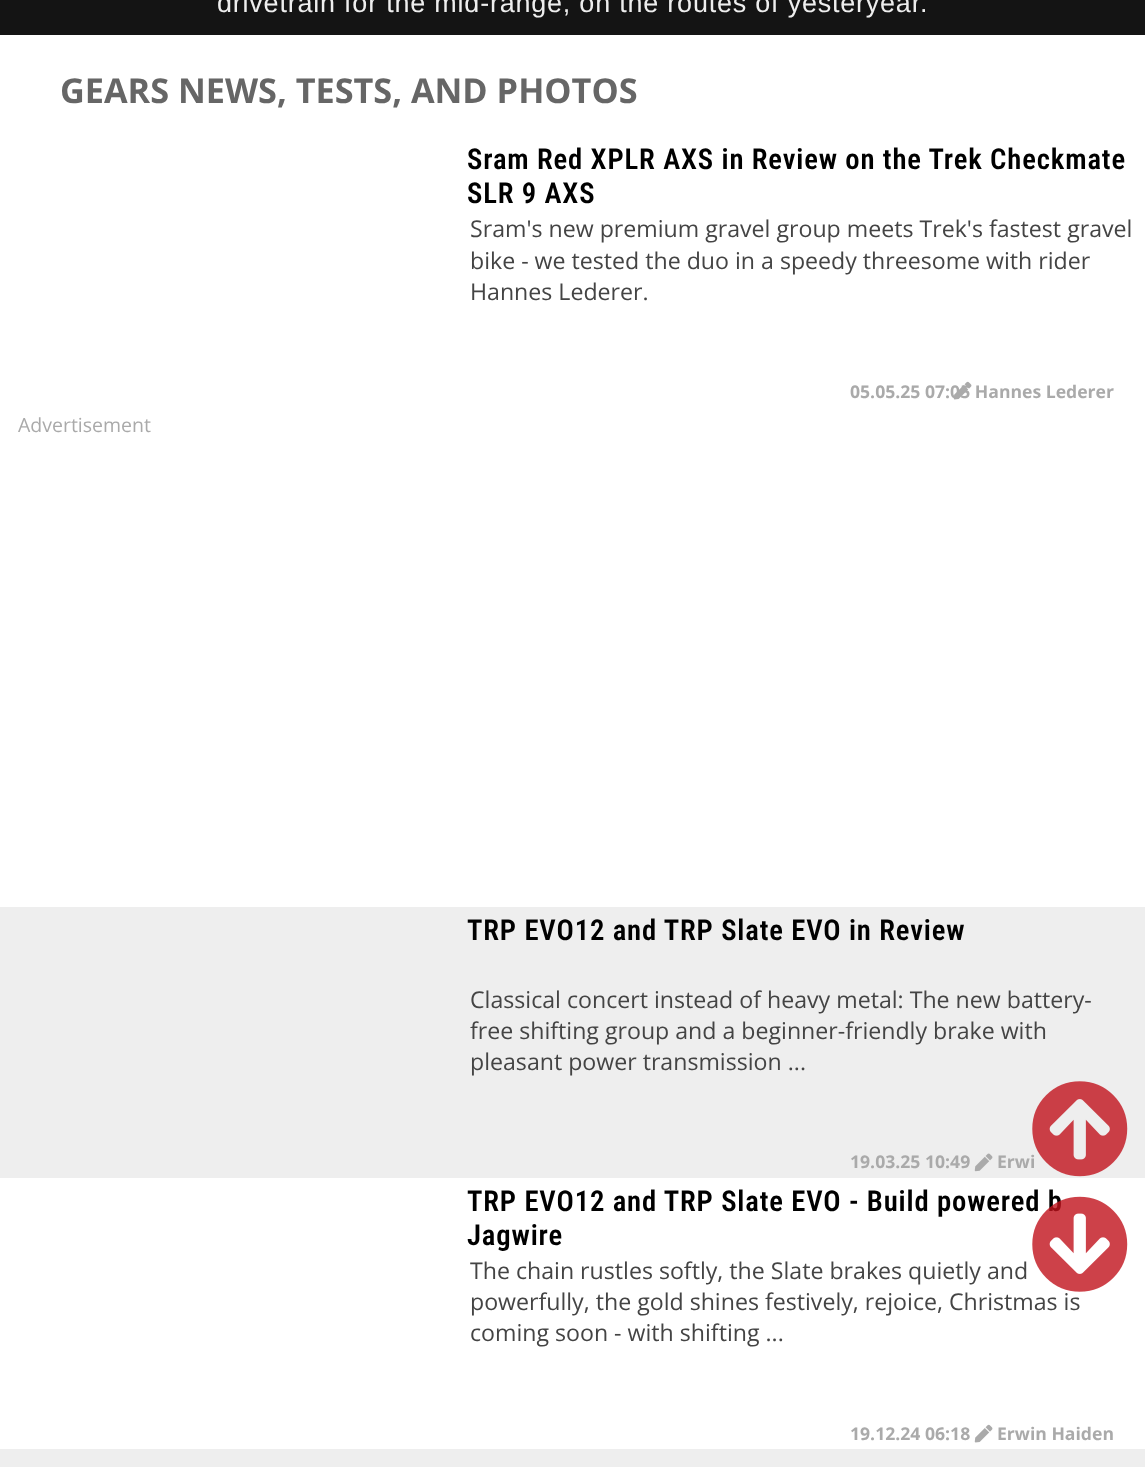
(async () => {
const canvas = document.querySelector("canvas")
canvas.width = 1145
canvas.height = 1467
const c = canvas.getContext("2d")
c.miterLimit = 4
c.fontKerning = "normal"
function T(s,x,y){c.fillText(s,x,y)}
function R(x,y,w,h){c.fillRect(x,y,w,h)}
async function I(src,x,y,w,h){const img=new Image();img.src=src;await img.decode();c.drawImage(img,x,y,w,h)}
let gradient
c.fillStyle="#fff"
R(0,0,1145,1467)
gradient = c.createLinearGradient(573,-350,573,35)
gradient.addColorStop(0,"#000")
gradient.addColorStop(.56,"#141414")
c.fillStyle = gradient
R(0,0,1145,35)
c.letterSpacing="0.8px"
c.font="26.95px Liberation Sans"
c.fillStyle="#eee"
T("drivetrain for the mid-range, on the routes of yesteryear.",217,12)
c.letterSpacing="0px"
c.font="bold 34.25px Open Sans"
c.fillStyle="#666"
T("GEARS NEWS, TESTS, AND PHOTOS",60,103)
c.letterSpacing="0.85px"
c.font="600 28.7px Roboto Condensed"
c.fillStyle="#000"
T("Sram Red XPLR AXS in Review on the Trek Checkmate",467,169)
T("SLR 9 AXS",467,203)
c.letterSpacing="0px"
c.font="23.15px Open Sans"
c.fillStyle="#444"
T("Sram's new premium gravel group meets Trek's fastest gravel",470,237)
T("bike - we tested the duo in a speedy threesome with rider",470,269)
T("Hannes Lederer.",470,300)
c.font="bold 17.6px Open Sans"
c.fillStyle="#aaa"
T("05.05.25 07:05 Hannes Lederer",850,398)
await I("1.png",953,381,19,19)
c.font="19.5px Open Sans"
T("Advertisement",18,432)
c.fillStyle="#eee"
R(0,907,1145,271)
c.letterSpacing="0.85px"
c.font="600 28.7px Roboto Condensed"
c.fillStyle="#000"
T("TRP EVO12 and TRP Slate EVO in Review",467,940)
c.letterSpacing="0px"
c.font="23.15px Open Sans"
c.fillStyle="#444"
T("Classical concert instead of heavy metal: The new battery-",470,1008)
T("free shifting group and a beginner-friendly brake with",470,1039)
T("pleasant power transmission ...",470,1070)
c.font="bold 17.6px Open Sans"
c.fillStyle="#aaa"
T("19.03.25 10:49",850,1168)
await I("2.png",974,1153,19,19)
T("Erwi",997,1168)
c.letterSpacing="0.85px"
c.font="600 28.7px Roboto Condensed"
c.fillStyle="#000"
T("TRP EVO12 and TRP Slate EVO - Build powered b",467,1211)
T("Jagwire",467,1245)
c.letterSpacing="0px"
c.font="23.15px Open Sans"
c.fillStyle="#444"
T("The chain rustles softly, the Slate brakes quietly and",470,1279)
T("powerfully, the gold shines festively, rejoice, Christmas is",470,1310)
T("coming soon - with shifting ...",470,1341)
c.font="bold 17.6px Open Sans"
c.fillStyle="#aaa"
T("19.12.24 06:18",850,1440)
await I("3.png",974,1424,19,19)
T("Erwin Haiden",997,1440)
c.fillStyle="#eee"
R(0,1449,1145,18)
await I("4.png",1032,1081,96,96)
await I("5.png",1032,1196,96,96)
})()
